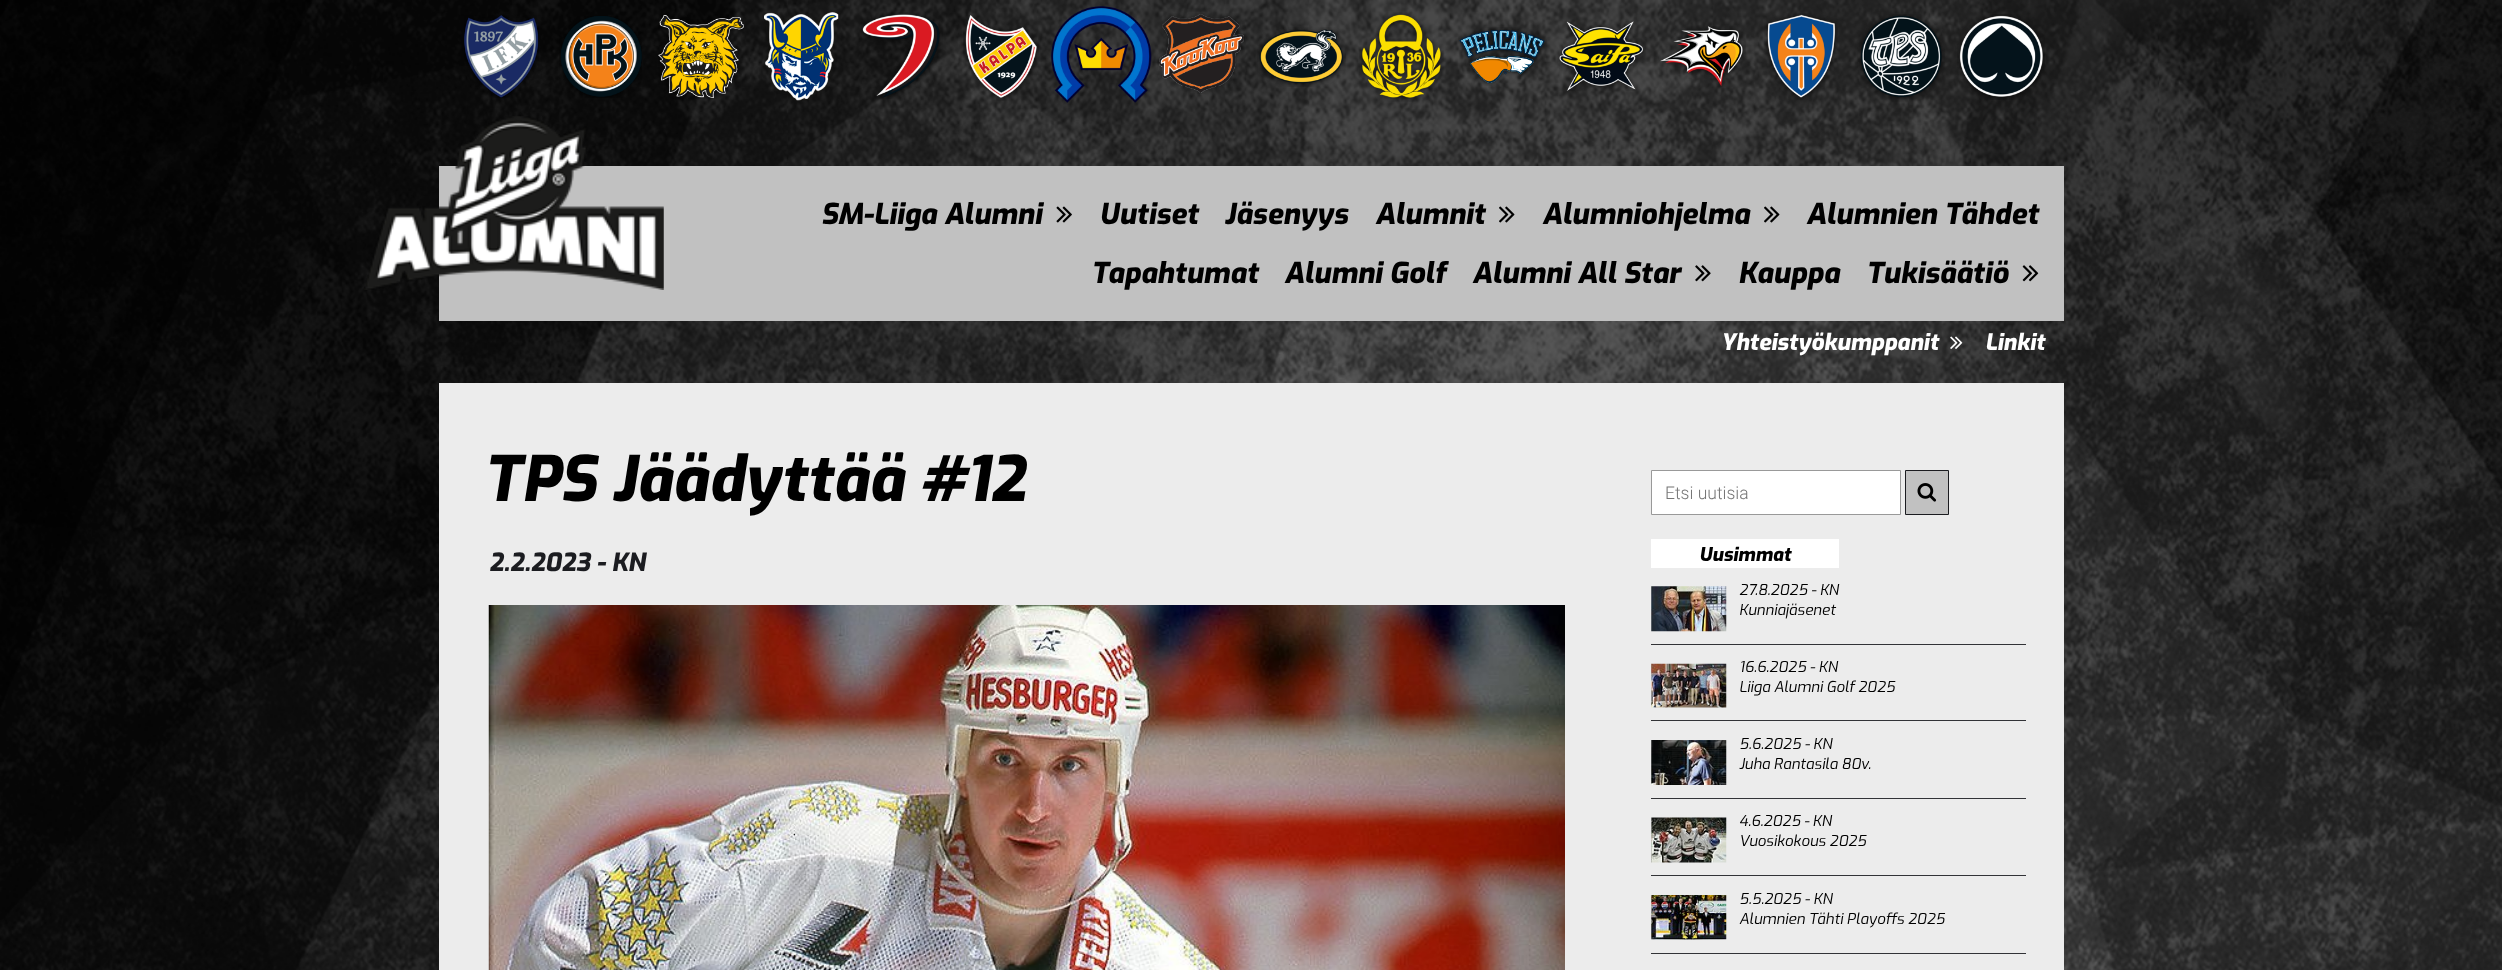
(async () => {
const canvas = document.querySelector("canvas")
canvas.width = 2502
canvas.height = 970
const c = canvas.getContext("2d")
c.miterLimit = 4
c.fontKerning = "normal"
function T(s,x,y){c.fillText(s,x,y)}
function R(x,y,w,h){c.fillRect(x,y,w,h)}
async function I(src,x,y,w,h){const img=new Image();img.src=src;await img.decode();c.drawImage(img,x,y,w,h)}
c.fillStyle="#fff"
R(0,0,2502,970)
await I("1.png",0,0,2502,970)
await I("2.png",464,15,75,83)
await I("3.png",559,16,83,82)
await I("4.png",658,14,86,85)
await I("5.png",764,12,75,89)
await I("6.png",861,12,82,87)
await I("7.png",963,15,76,86)
await I("8.png",1051,6,101,97)
await I("9.png",1157,13,88,81)
await I("10.png",1257,27,89,60)
await I("11.png",1359,12,85,90)
await I("12.png",1458,27,89,59)
await I("13.png",1557,21,89,70)
await I("14.png",1660,26,86,61)
await I("15.png",1764,13,74,87)
await I("16.png",1857,14,88,88)
await I("17.png",1957,14,88,86)
c.fillStyle="#c1c1c1"
R(439,166,1625,155)
await I("18.png",364,116,300,174)
c.font="italic 800 28.75px Exo"
c.fillStyle="#000"
T("SM-Liiga Alumni",821,224)
await I("19.png",1056,206,16,17)
T("Uutiset",1099,224)
T("Jäsenyys",1224,224)
T("Alumnit",1375,224)
await I("20.png",1499,206,16,17)
T("Alumniohjelma",1542,224)
await I("20.png",1764,206,16,17)
T("Alumnien Tähdet",1806,224)
T("Tapahtumat",1091,283)
T("Alumni Golf",1284,283)
T("Alumni All Star",1472,283)
await I("21.png",1695,265,16,17)
T("Kauppa",1738,283)
T("Tukisäätiö",1866,283)
await I("22.png",2022,265,17,17)
c.font="italic 800 22.5px Exo"
c.fillStyle="#fff"
T("Yhteistyökumppanit",1721,350)
await I("23.png",1950,336,13,13)
T("Linkit",1985,350)
c.fillStyle="#ececec"
R(439,383,1625,587)
c.font="italic 800 62.5px Exo"
c.fillStyle="#000"
T("TPS Jäädyttää #12",483,501)
c.font="italic 800 25px Exo"
c.fillStyle="#1b1c20"
T("2.2.2023 - KN",489,571)
await I("24.png",488,605,1077,365)
c.fillStyle="#fff"
c.beginPath()
c.rect(1651.5,470.5,249,44)
c.fill()
c.strokeStyle="#999"
c.stroke()
c.font="300 17.5px Roboto"
c.fillStyle="#757575"
T("Etsi uutisia",1665,499)
c.fillStyle="#c1c1c1"
c.beginPath()
c.rect(1905.5,470.5,43,44)
c.fill()
c.strokeStyle="#1b1c20"
c.stroke()
await I("25.png",1917,483,20,19)
c.fillStyle="#fff"
R(1651,539,188,29)
c.font="italic 800 18.75px Exo"
c.fillStyle="#000"
T("Uusimmat",1699,561)
c.fillStyle="#323337"
R(1651,644,375,1)
await I("26.png",1651,586,76,46)
c.font="italic 15px Exo"
c.fillStyle="#000"
T("27.8.2025 - KN",1739,595)
T("Kunniajäsenet",1739,615)
c.fillStyle="#323337"
R(1651,720,375,1)
await I("27.png",1651,663,76,45)
c.fillStyle="#000"
T("16.6.2025 - KN",1739,672)
T("Liiga Alumni Golf 2025",1739,692)
c.fillStyle="#323337"
R(1651,798,375,1)
await I("28.png",1651,740,76,45)
c.fillStyle="#000"
T("5.6.2025 - KN",1739,749)
T("Juha Rantasila 80v.",1739,769)
c.fillStyle="#323337"
R(1651,875,375,1)
await I("29.png",1651,817,76,46)
c.fillStyle="#000"
T("4.6.2025 - KN",1739,826)
T("Vuosikokous 2025",1739,846)
c.fillStyle="#323337"
R(1651,953,375,1)
await I("30.png",1651,895,76,45)
c.fillStyle="#000"
T("5.5.2025 - KN",1739,904)
T("Alumnien Tähti Playoffs 2025",1739,924)
})()
